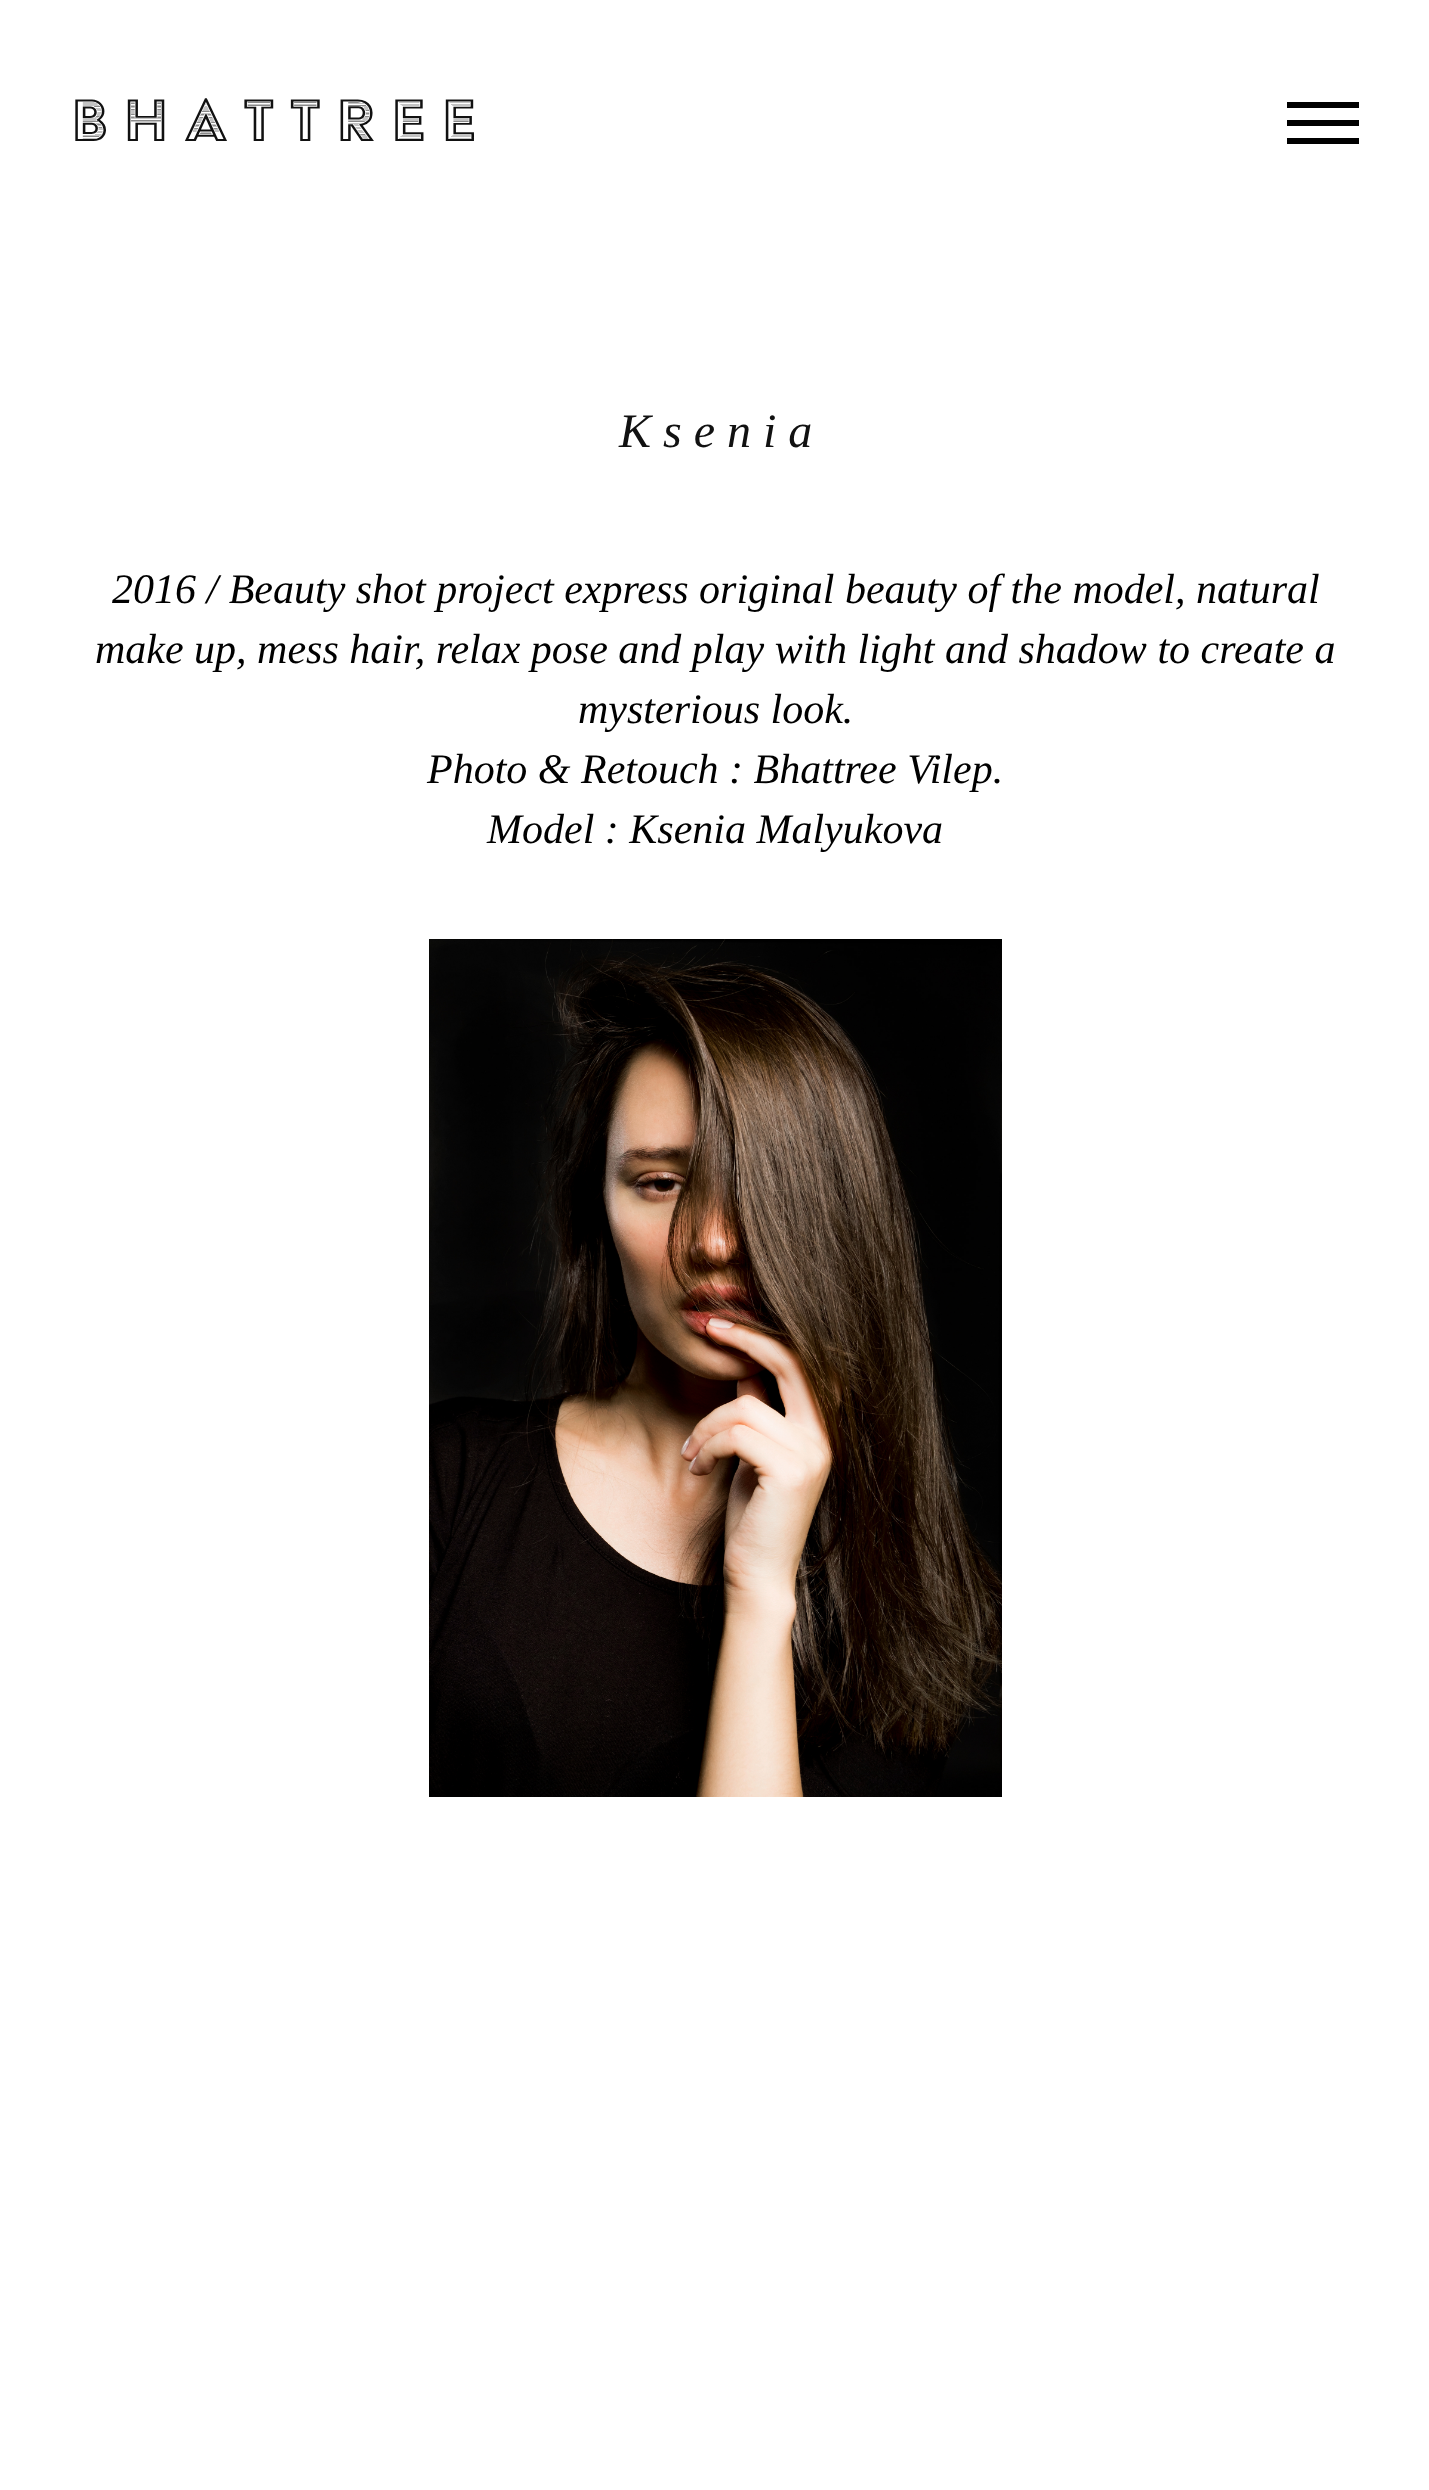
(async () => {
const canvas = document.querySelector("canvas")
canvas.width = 1429
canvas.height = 2490
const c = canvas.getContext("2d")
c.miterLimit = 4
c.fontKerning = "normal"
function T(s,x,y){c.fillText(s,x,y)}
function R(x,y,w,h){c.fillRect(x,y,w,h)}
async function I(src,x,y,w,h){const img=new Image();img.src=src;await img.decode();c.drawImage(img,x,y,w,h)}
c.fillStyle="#fff"
R(0,0,1429,2490)
c.font="69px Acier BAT"
c.fillStyle="#111"
T("B h a t t r e e",72,141)
c.fillStyle="#000"
R(1287,102,72,6)
R(1287,120,72,6)
R(1287,138,72,6)
c.font="italic 48px Liberation Serif"
c.fillStyle="#111"
T("K s e n i a",619,447)
c.font="italic 42px Liberation Serif"
c.fillStyle="#000"
T("2016 / Beauty shot project express original beauty of the model, natural",112,603)
T("make up, mess hair, relax pose and play with light and shadow to create a",95,663)
T("mysterious look.",578,723)
T("Photo & Retouch : Bhattree Vilep.",427,783)
T("Model : Ksenia Malyukova",487,843)
await I("1.png",429,939,573,858)
})()
